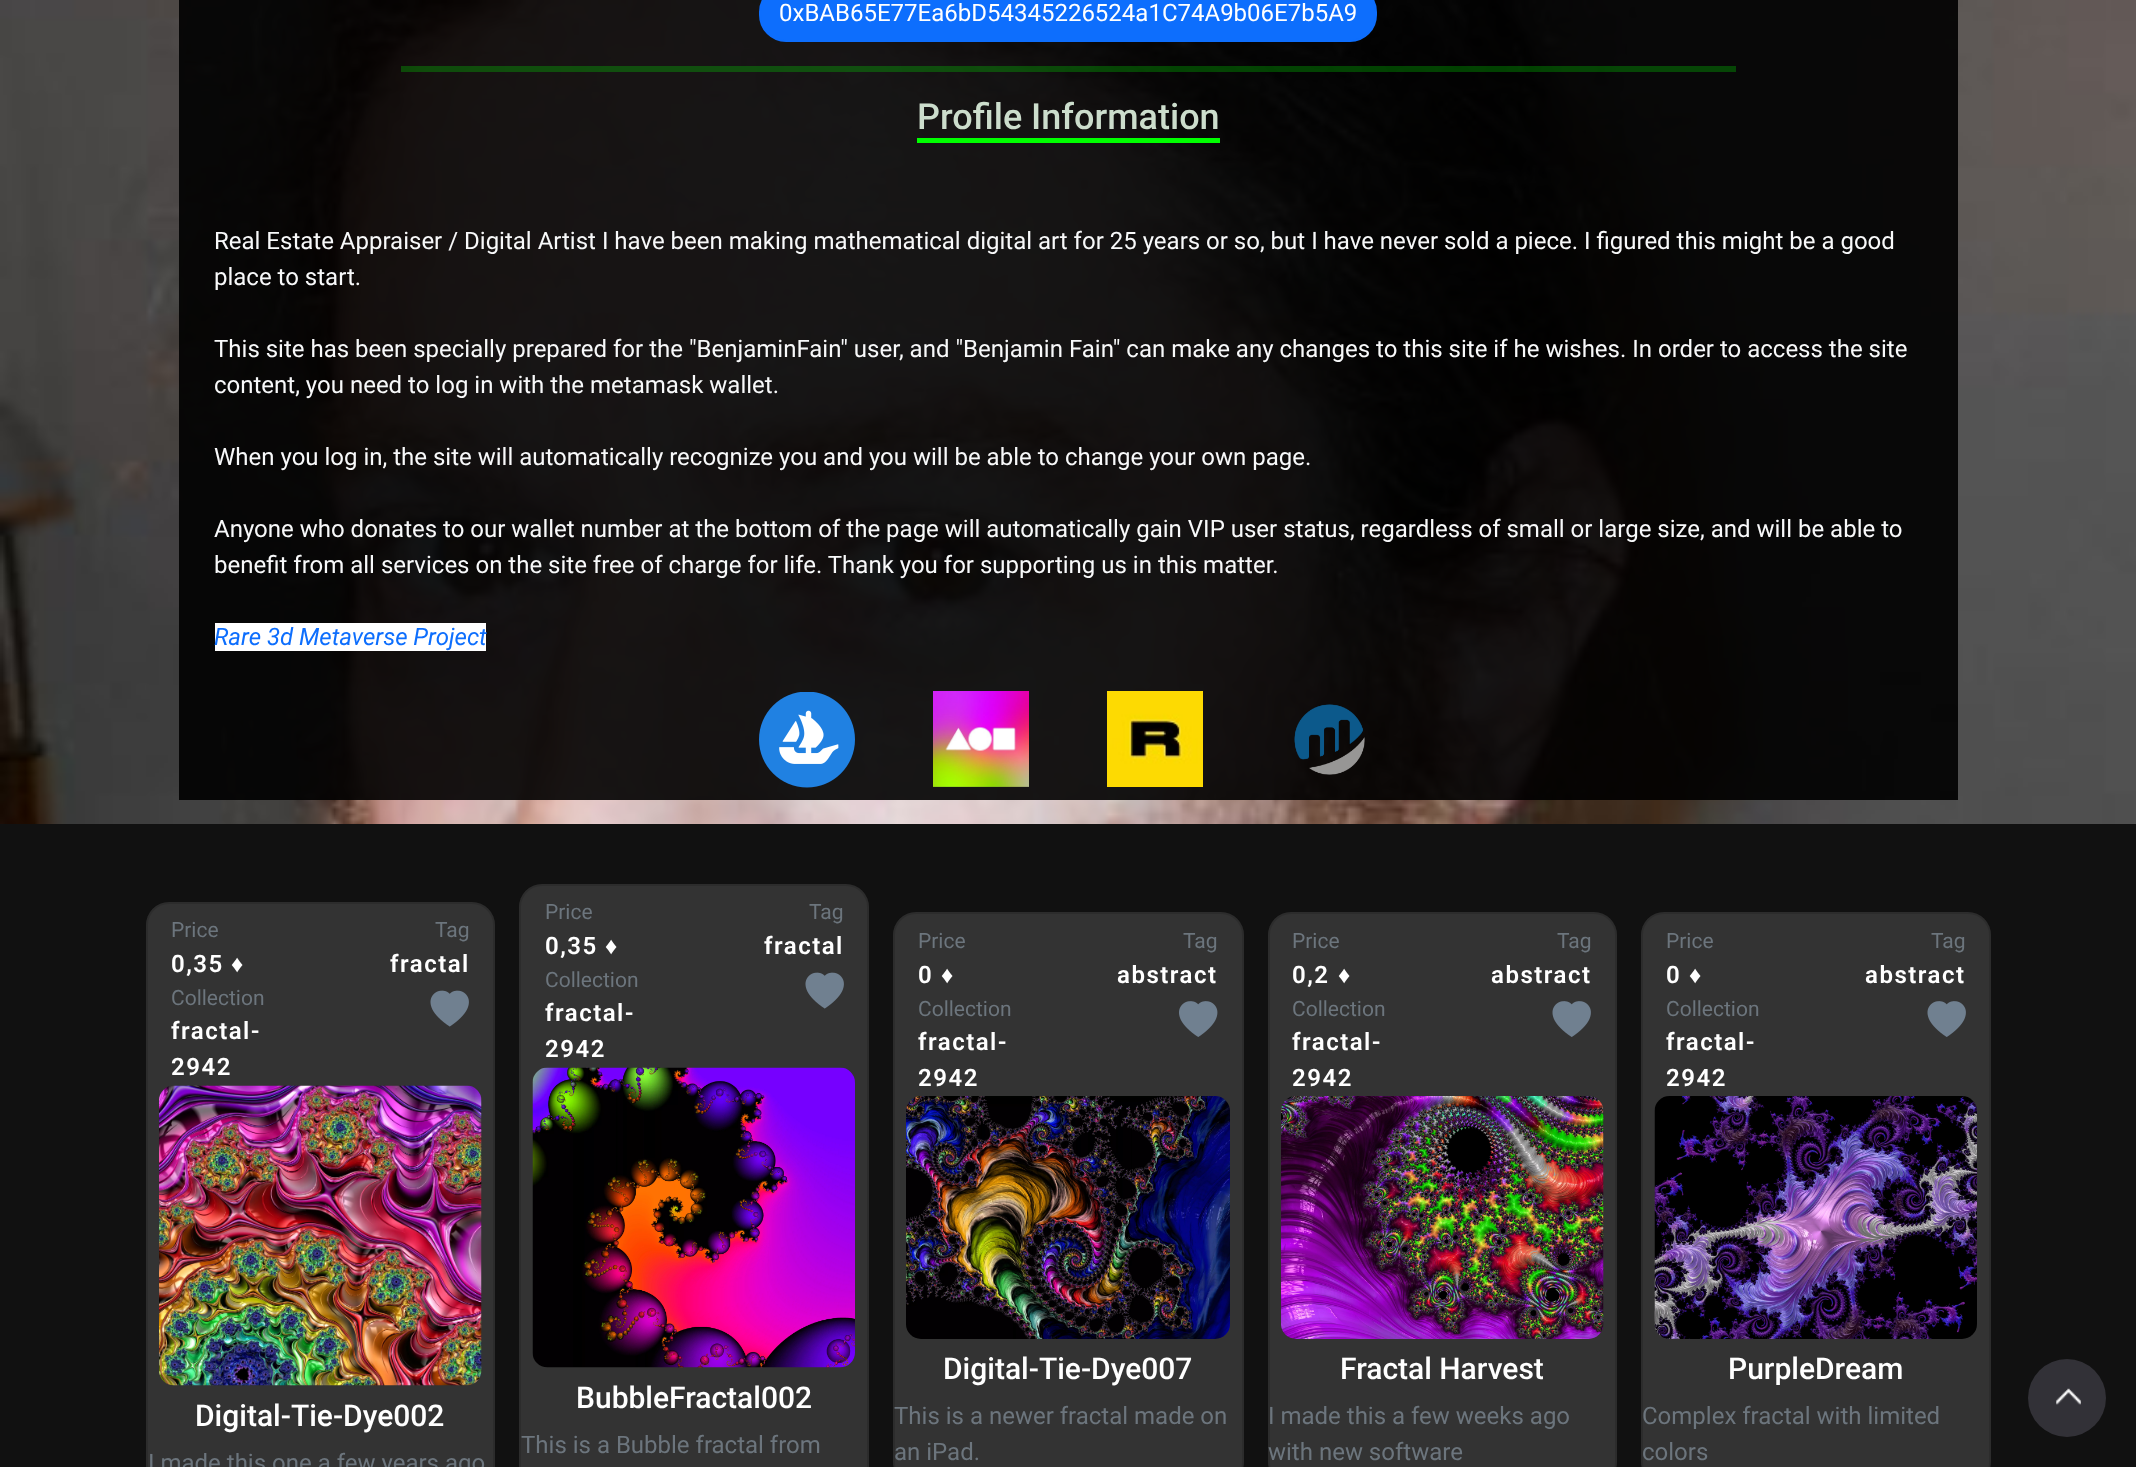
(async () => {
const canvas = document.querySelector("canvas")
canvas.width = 2136
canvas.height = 1467
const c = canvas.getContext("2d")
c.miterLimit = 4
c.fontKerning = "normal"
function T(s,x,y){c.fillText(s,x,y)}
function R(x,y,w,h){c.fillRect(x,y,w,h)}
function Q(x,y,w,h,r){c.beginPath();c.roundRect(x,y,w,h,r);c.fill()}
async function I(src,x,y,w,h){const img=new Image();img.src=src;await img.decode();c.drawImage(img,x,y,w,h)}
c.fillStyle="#fff"
R(0,0,2136,1467)
await I("1.png",0,0,2136,824)
c.fillStyle="#000000e6"
R(179,0,1779,800)
c.fillStyle="#0d6efd"
c.beginPath()
c.roundRect(760,-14,616,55,26)
c.fill()
c.strokeStyle="#0d6efd"
c.lineWidth=2
c.stroke()
c.font="24px Roboto"
c.fillStyle="#fff"
T("0xBAB65E77Ea6bD54345226524a1C74A9b06E7b5A9",779,21)
c.fillStyle="#00ff0040"
R(401,66,1335,6)
c.font="500 36px Roboto"
c.fillStyle="#cdc"
T("Profile Information",917,129)
c.fillStyle="#0f0"
R(917,138,303,5)
c.font="24px Roboto"
c.fillStyle="#f8f9fa"
T("Real Estate Appraiser / Digital Artist I have been making mathematical digital art for 25 years or so, but I have never sold a piece. I figured this might be a good",214,249)
T("place to start.",214,285)
T("This site has been specially prepared for the \"BenjaminFain\" user, and \"Benjamin Fain\" can make any changes to this site if he wishes. In order to access the site",214,357)
T("content, you need to log in with the metamask wallet.",214,393)
T("When you log in, the site will automatically recognize you and you will be able to change your own page.",214,465)
T("Anyone who donates to our wallet number at the bottom of the page will automatically gain VIP user status, regardless of small or large size, and will be able to",214,537)
T("benefit from all services on the site free of charge for life. Thank you for supporting us in this matter.",214,573)
c.fillStyle="#fff"
R(215,623,271,28)
c.font="italic 24px Roboto"
c.fillStyle="#0d6efd"
T("Rare 3d Metaverse Project",214,645)
await I("2.png",759,692,96,96)
await I("3.png",933,691,96,96)
await I("4.png",1107,691,96,96)
await I("5.png",1294,704,71,71)
c.fillStyle="#111"
R(0,824,2136,643)
c.fillStyle="#333"
Q(146,902,349,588,23)
c.beginPath()
c.roundRect(147,903,347,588,22)
c.strokeStyle="#0000001f"
c.stroke()
c.font="21px Roboto"
c.fillStyle="#6c757d"
T("Price",171,937)
c.letterSpacing="1.5px"
c.font="600 24px Roboto"
c.fillStyle="#fff"
T("0,35",171,972)
c.font="bold 24px Liberation Sans"
T("♦",231,972)
c.letterSpacing="0px"
c.font="21px Roboto"
c.fillStyle="#6c757d"
T("Tag",435,937)
c.letterSpacing="1.5px"
c.font="600 24px Roboto"
c.fillStyle="#fff"
T("fractal",390,972)
c.letterSpacing="0px"
c.font="21px Roboto"
c.fillStyle="#6c757d"
T("Collection",171,1005)
c.letterSpacing="1.5px"
c.font="600 24px Roboto"
c.fillStyle="#fff"
T("fractal-",171,1039)
T("2942",171,1075)
await I("6.png",430,990,39,37)
await I("7.png",159,1085,323,301)
c.letterSpacing="0px"
c.font="500 30px Roboto"
T("Digital-Tie-Dye002",195,1426)
c.font="24px Roboto"
c.fillStyle="#6c757d"
T("I made this one a few years ago",148,1471)
c.fillStyle="#333"
Q(519,884,350,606,23)
c.beginPath()
c.roundRect(520,885,348,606,22)
c.stroke()
c.font="21px Roboto"
c.fillStyle="#6c757d"
T("Price",545,919)
c.letterSpacing="1.5px"
c.font="600 24px Roboto"
c.fillStyle="#fff"
T("0,35",545,954)
c.font="bold 24px Liberation Sans"
T("♦",605,954)
c.letterSpacing="0px"
c.font="21px Roboto"
c.fillStyle="#6c757d"
T("Tag",809,919)
c.letterSpacing="1.5px"
c.font="600 24px Roboto"
c.fillStyle="#fff"
T("fractal",764,954)
c.letterSpacing="0px"
c.font="21px Roboto"
c.fillStyle="#6c757d"
T("Collection",545,987)
c.letterSpacing="1.5px"
c.font="600 24px Roboto"
c.fillStyle="#fff"
T("fractal-",545,1021)
T("2942",545,1057)
await I("6.png",805,972,39,37)
await I("8.png",532,1067,323,301)
c.letterSpacing="0px"
c.font="500 30px Roboto"
T("BubbleFractal002",576,1408)
c.font="24px Roboto"
c.fillStyle="#6c757d"
T("This is a Bubble fractal from",521,1453)
c.fillStyle="#333"
Q(893,912,351,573,23)
c.beginPath()
c.roundRect(894,913,349,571,22)
c.stroke()
c.font="21px Roboto"
c.fillStyle="#6c757d"
T("Price",918,948)
c.letterSpacing="1.5px"
c.font="600 24px Roboto"
c.fillStyle="#fff"
T("0",918,983)
c.font="bold 24px Liberation Sans"
T("♦",941,983)
c.letterSpacing="0px"
c.font="21px Roboto"
c.fillStyle="#6c757d"
T("Tag",1183,948)
c.letterSpacing="1.5px"
c.font="600 24px Roboto"
c.fillStyle="#fff"
T("abstract",1117,983)
c.letterSpacing="0px"
c.font="21px Roboto"
c.fillStyle="#6c757d"
T("Collection",918,1016)
c.letterSpacing="1.5px"
c.font="600 24px Roboto"
c.fillStyle="#fff"
T("fractal-",918,1050)
T("2942",918,1086)
await I("9.png",1179,1001,39,36)
await I("10.png",906,1096,324,243)
c.letterSpacing="0px"
c.font="500 30px Roboto"
T("Digital-Tie-Dye007",943,1379)
c.font="24px Roboto"
c.fillStyle="#6c757d"
T("This is a newer fractal made on",894,1424)
T("an iPad.",894,1460)
c.fillStyle="#333"
Q(1268,912,349,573,23)
c.beginPath()
c.roundRect(1269,913,347,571,22)
c.stroke()
c.font="21px Roboto"
c.fillStyle="#6c757d"
T("Price",1292,948)
c.letterSpacing="1.5px"
c.font="600 24px Roboto"
c.fillStyle="#fff"
T("0,2",1292,983)
c.font="bold 24px Liberation Sans"
T("♦",1338,983)
c.letterSpacing="0px"
c.font="21px Roboto"
c.fillStyle="#6c757d"
T("Tag",1557,948)
c.letterSpacing="1.5px"
c.font="600 24px Roboto"
c.fillStyle="#fff"
T("abstract",1491,983)
c.letterSpacing="0px"
c.font="21px Roboto"
c.fillStyle="#6c757d"
T("Collection",1292,1016)
c.letterSpacing="1.5px"
c.font="600 24px Roboto"
c.fillStyle="#fff"
T("fractal-",1292,1050)
T("2942",1292,1086)
await I("11.png",1552,1001,39,36)
await I("12.png",1281,1096,323,243)
c.letterSpacing="0px"
c.font="500 30px Roboto"
T("Fractal Harvest",1340,1379)
c.font="24px Roboto"
c.fillStyle="#6c757d"
T("I made this a few weeks ago",1268,1424)
T("with new software",1268,1460)
c.fillStyle="#333"
Q(1641,912,350,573,23)
c.beginPath()
c.roundRect(1642,913,348,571,22)
c.stroke()
c.font="21px Roboto"
c.fillStyle="#6c757d"
T("Price",1666,948)
c.letterSpacing="1.5px"
c.font="600 24px Roboto"
c.fillStyle="#fff"
T("0",1666,983)
c.font="bold 24px Liberation Sans"
T("♦",1689,983)
c.letterSpacing="0px"
c.font="21px Roboto"
c.fillStyle="#6c757d"
T("Tag",1931,948)
c.letterSpacing="1.5px"
c.font="600 24px Roboto"
c.fillStyle="#fff"
T("abstract",1865,983)
c.letterSpacing="0px"
c.font="21px Roboto"
c.fillStyle="#6c757d"
T("Collection",1666,1016)
c.letterSpacing="1.5px"
c.font="600 24px Roboto"
c.fillStyle="#fff"
T("fractal-",1666,1050)
T("2942",1666,1086)
await I("11.png",1927,1001,39,36)
await I("13.png",1654,1096,323,243)
c.letterSpacing="0px"
c.font="500 30px Roboto"
T("PurpleDream",1728,1379)
c.font="24px Roboto"
c.fillStyle="#6c757d"
T("Complex fractal with limited",1642,1424)
T("colors",1642,1460)
c.fillStyle="#323137"
c.beginPath()
c.arc(2067,1398,39,0,7)
c.fill()
await I("14.png",2056,1388,25,17)
})()
